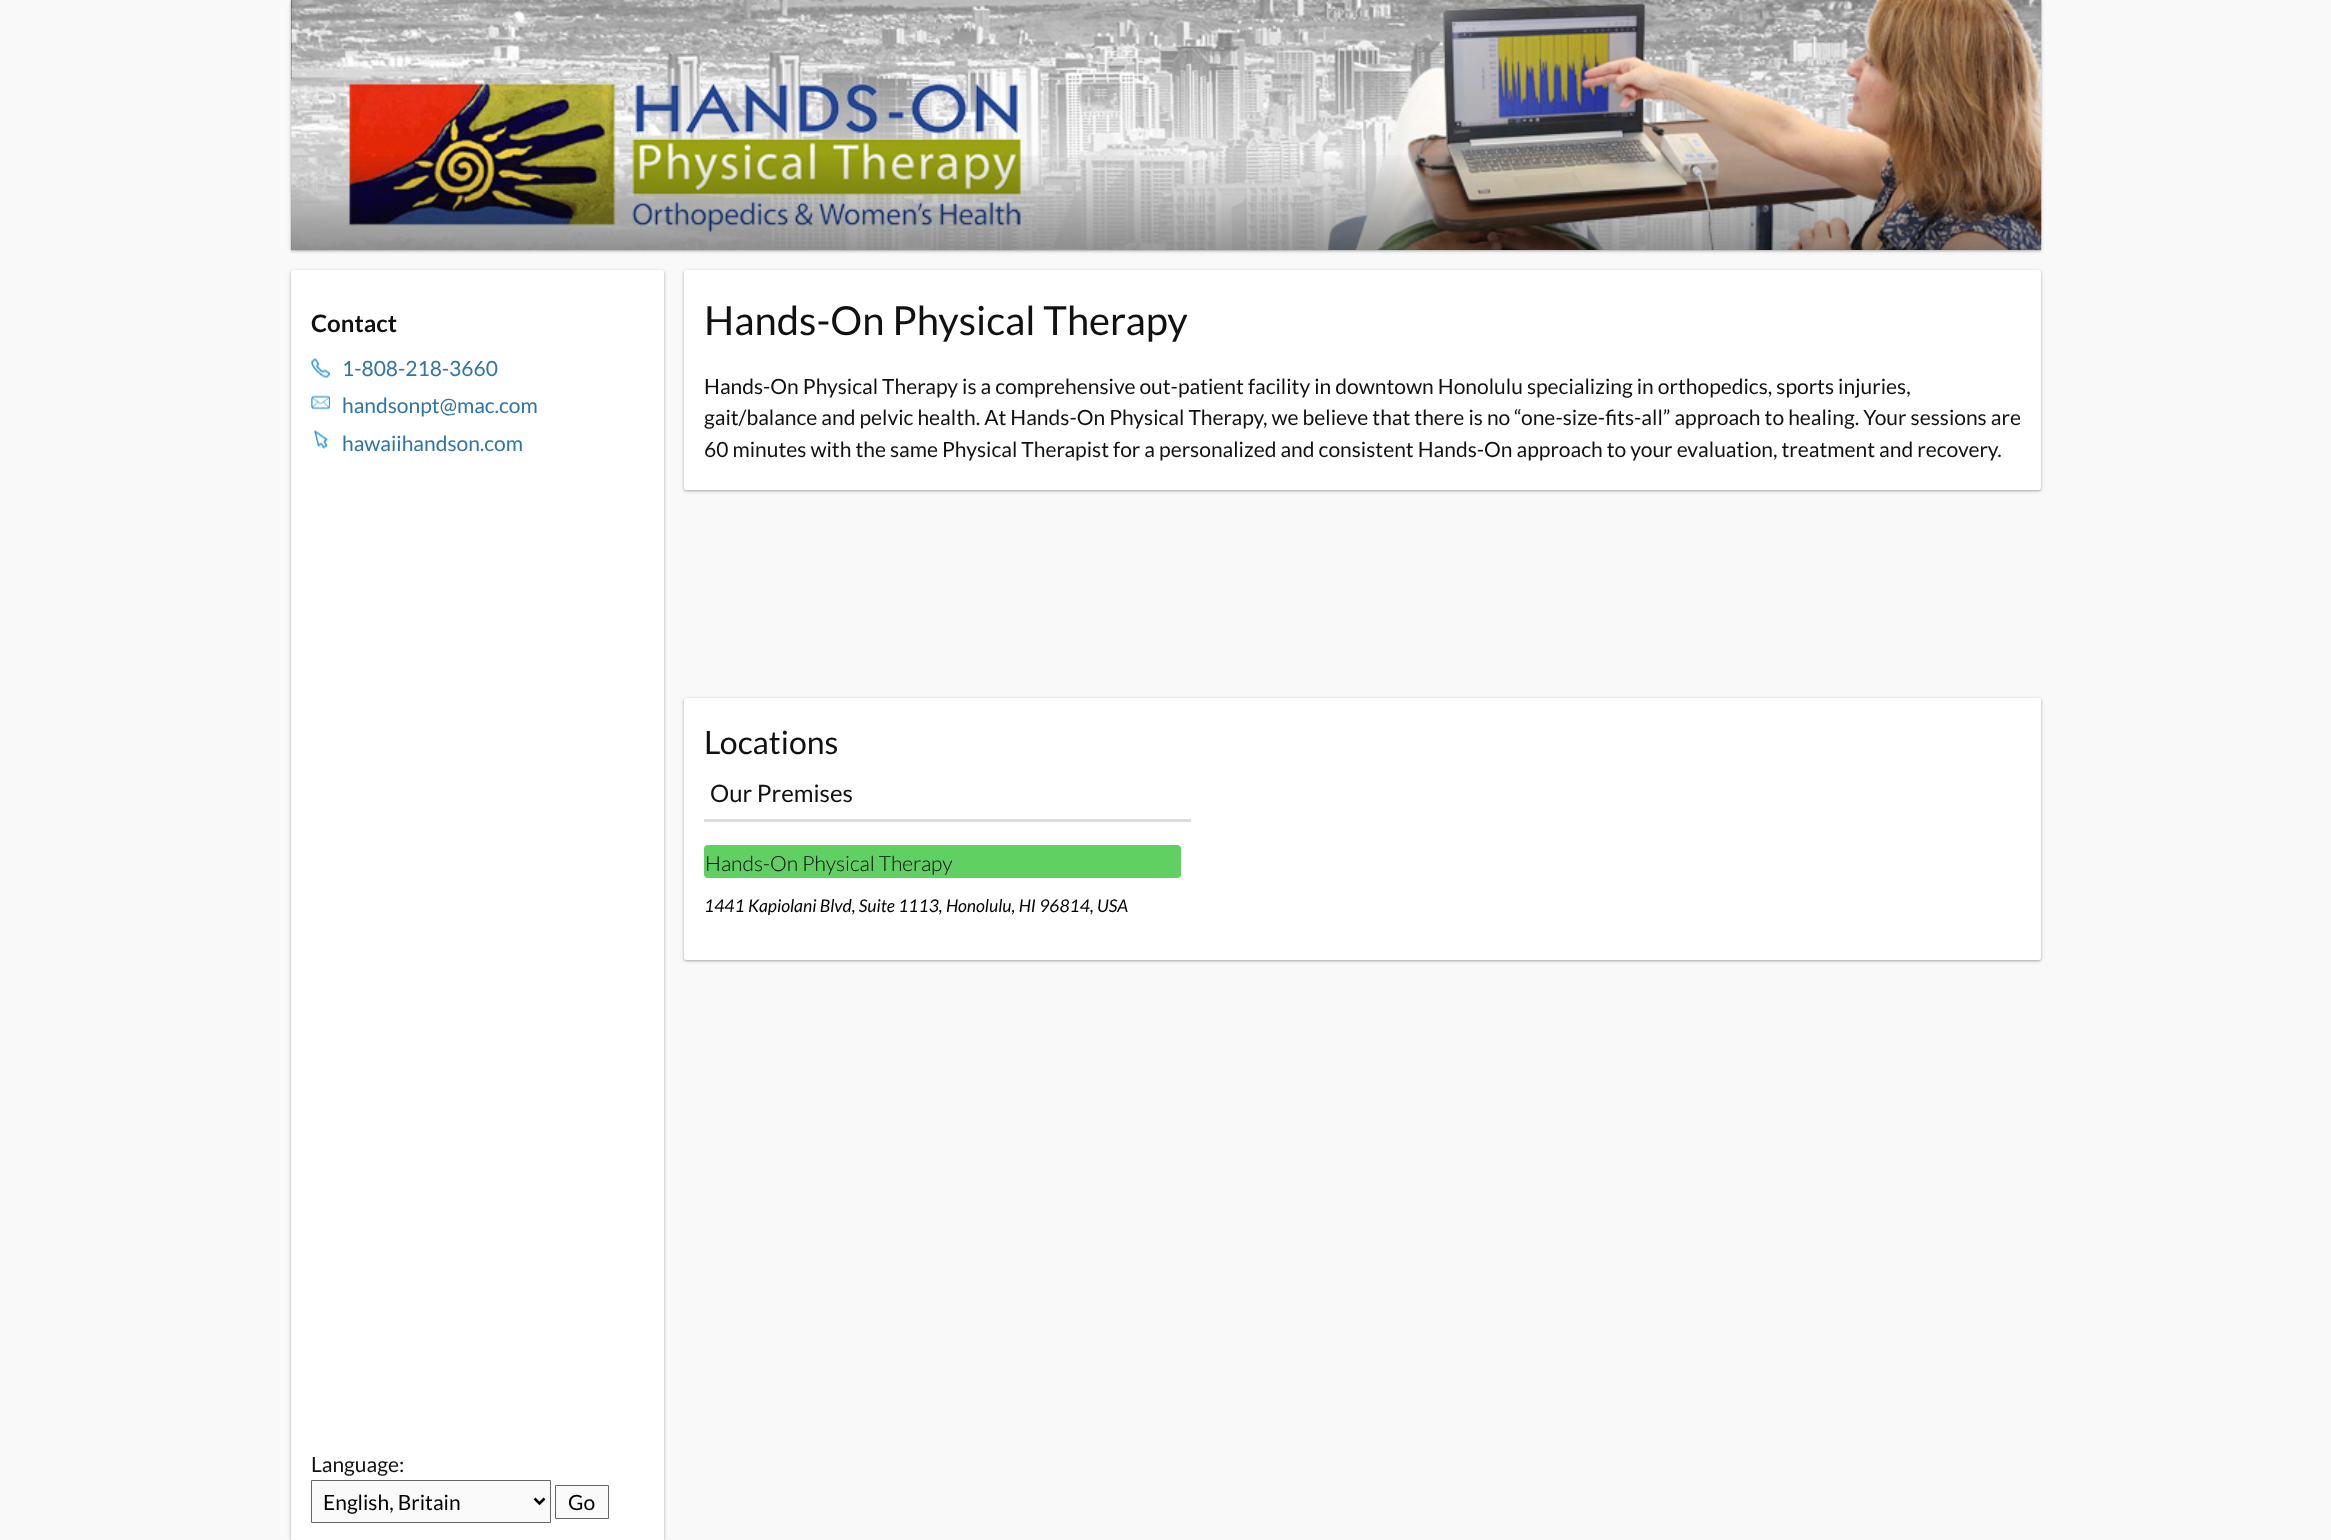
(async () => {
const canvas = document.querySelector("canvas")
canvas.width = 2331
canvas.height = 1540
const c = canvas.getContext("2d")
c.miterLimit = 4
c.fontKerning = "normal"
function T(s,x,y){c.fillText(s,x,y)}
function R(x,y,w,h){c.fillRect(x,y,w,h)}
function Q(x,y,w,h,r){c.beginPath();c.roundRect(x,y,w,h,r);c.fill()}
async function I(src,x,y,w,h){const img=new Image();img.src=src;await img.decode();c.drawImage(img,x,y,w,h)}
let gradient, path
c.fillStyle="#f9f9f9"
R(0,0,2331,1540)
c.strokeStyle="#000"
c.lineWidth=4
c.strokeRect(293,2,294,75)
c.fillStyle="#0000003d"
c.filter="blur(1px)"
c.beginPath()
c.rect(291,1,1750,250)
c.fill()
c.filter="none"
c.fillStyle="#0000001f"
c.filter="blur(2px)"
c.beginPath()
c.rect(291,1,1750,250)
c.fill()
c.filter="none"
await I("1.png",291,0,1751,250)
gradient = c.createLinearGradient(1166,250,1166,0)
gradient.addColorStop(0,"#00000066")
gradient.addColorStop(.4,"#00000000")
c.fillStyle = gradient
R(291,155,1750,95)
c.fillStyle="#0000003d"
c.filter="blur(1px)"
c.beginPath()
c.roundRect(291,271,373,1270,2.5)
c.fill()
c.filter="none"
c.fillStyle="#0000001f"
c.filter="blur(2px)"
c.beginPath()
c.roundRect(291,271,373,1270,2.5)
c.fill()
c.filter="none"
c.fillStyle="#fff"
c.beginPath()
c.roundRect(291,270,373,1270,[2.5,2.5,0,0])
c.fill()
c.font="bold 24px Lato"
c.fillStyle="#111"
T("Contact",311,332)
await I("2.png",311,358,19,20)
c.font="21px Lato"
c.fillStyle="#2e75a6"
T("1-808-218-3660",342,376)
await I("3.png",311,395,19,15)
T("handsonpt@mac.com",342,413)
await I("4.png",314,430,14,19)
T("hawaiihandson.com",342,451)
c.fillStyle="#111"
T("Language:",311,1472)
c.fillStyle="#fafafa"
c.beginPath()
c.rect(311.5,1480.5,239,42)
c.fill()
c.strokeStyle="#656565"
c.lineWidth=1
c.stroke()
path = new Path2D("M534.5 1498.5l5 5l5-5")
c.strokeStyle="#000"
c.lineWidth=2.5
c.stroke(path)
c.fillStyle="#000"
T("English, Britain",323,1510)
c.fillStyle="#fafafa"
c.beginPath()
c.rect(555.5,1485.5,53,33)
c.fill()
c.strokeStyle="#656565"
c.lineWidth=1
c.stroke()
c.fillStyle="#000"
T("Go",568,1510)
c.fillStyle="#0000003d"
c.filter="blur(1px)"
c.beginPath()
c.roundRect(684,271,1357,220,2.5)
c.fill()
c.filter="none"
c.fillStyle="#0000001f"
c.filter="blur(2px)"
c.beginPath()
c.roundRect(684,271,1357,220,2.5)
c.fill()
c.filter="none"
c.fillStyle="#fff"
Q(684,270,1357,220,2.5)
c.font="40px Lato"
c.fillStyle="#111"
T("Hands-On Physical Therapy",704,335)
c.font="21px Lato"
T("Hands-On Physical Therapy is a comprehensive out-patient facility in downtown Honolulu specializing in orthopedics, sports injuries,",704,394)
T("gait/balance and pelvic health. At Hands-On Physical Therapy, we believe that there is no “one-size-fits-all” approach to healing. Your sessions are",704,425)
T("60 minutes with the same Physical Therapist for a personalized and consistent Hands-On approach to your evaluation, treatment and recovery.",704,457)
c.fillStyle="#0000003d"
c.filter="blur(1px)"
c.beginPath()
c.roundRect(684,699,1357,262,2.5)
c.fill()
c.filter="none"
c.fillStyle="#0000001f"
c.filter="blur(2px)"
c.beginPath()
c.roundRect(684,699,1357,262,2.5)
c.fill()
c.filter="none"
c.fillStyle="#fff"
Q(684,698,1357,262,2.5)
c.font="32px Lato"
c.fillStyle="#111"
T("Locations",704,754)
c.fillStyle="#ddd"
R(704,819,487,3)
c.font="24px Lato"
c.fillStyle="#111"
T("Our Premises",710,802)
c.fillStyle="#60d063"
Q(704,845,477,33,4)
c.font="300 21px Lato"
c.fillStyle="#000"
T("Hands-On Physical Therapy",705,871)
c.font="italic 17.5px Lato"
T("1441 Kapiolani Blvd, Suite 1113, Honolulu, HI 96814, USA",704,912)
})()
